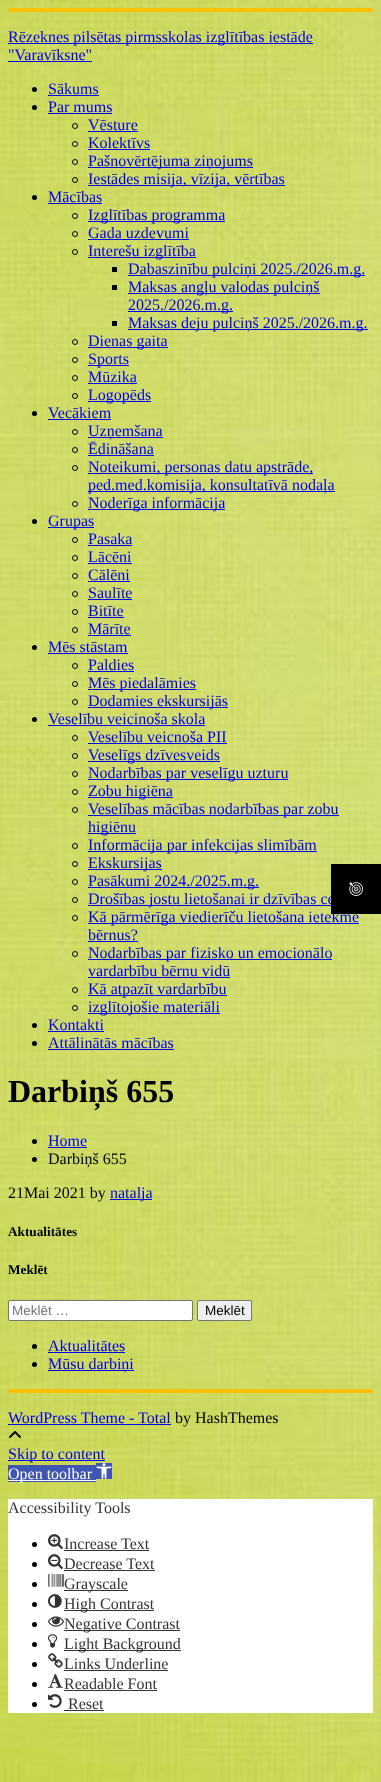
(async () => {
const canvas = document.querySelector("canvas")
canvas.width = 381
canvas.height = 1782
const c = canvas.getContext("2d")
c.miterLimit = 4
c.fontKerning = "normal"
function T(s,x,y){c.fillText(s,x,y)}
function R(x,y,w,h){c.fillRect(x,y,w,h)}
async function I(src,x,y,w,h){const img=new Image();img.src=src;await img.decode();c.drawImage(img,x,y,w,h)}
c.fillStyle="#fff"
R(0,0,381,1782)
await I("1.png",0,0,381,1782)
c.fillStyle="#ffc107"
R(8,8,365,4)
c.fillStyle="#00e"
R(8,43,305,1)
c.font="16px Liberation Serif"
T("Rēzeknes pilsētas pirmsskolas izglītības iestāde",8,42)
T("\"Varavīksne\"",8,60)
R(8,61,84,1)
c.fillStyle="#000"
c.beginPath()
c.arc(34.5,89.5,2.5,0,7)
c.fill()
c.fillStyle="#00e"
T("Sākums",48,94)
R(48,95,51,1)
c.fillStyle="#000"
c.beginPath()
c.arc(34.5,107.5,2.5,0,7)
c.fill()
c.fillStyle="#00e"
T("Par mums",48,112)
R(48,113,64,1)
c.beginPath()
c.arc(75,126,2.5,0,7)
c.strokeStyle="#000"
c.stroke()
T("Vēsture",88,130)
R(88,131,50,1)
c.beginPath()
c.arc(75,144,2.5,0,7)
c.stroke()
T("Kolektīvs",88,148)
R(88,149,62,1)
c.beginPath()
c.arc(75,162,2.5,0,7)
c.stroke()
R(88,167,165,1)
T("Pašnovērtējuma ziņojums",88,166)
c.beginPath()
c.arc(75,180,2.5,0,7)
c.stroke()
R(88,185,197,1)
T("Iestādes misija, vīzija, vērtības",88,184)
c.fillStyle="#000"
c.beginPath()
c.arc(34.5,197.5,2.5,0,7)
c.fill()
c.fillStyle="#00e"
T("Mācības",48,202)
R(48,203,54,1)
c.beginPath()
c.arc(75,216,2.5,0,7)
c.stroke()
R(88,221,137,1)
T("Izglītības programma",88,220)
c.beginPath()
c.arc(75,234,2.5,0,7)
c.stroke()
T("Gada uzdevumi",88,238)
R(88,239,101,1)
c.beginPath()
c.arc(75,252,2.5,0,7)
c.stroke()
R(88,257,108,1)
T("Interešu izglītība",88,256)
c.fillStyle="#000"
R(112,267,5,5)
c.fillStyle="#00e"
R(128,275,237,1)
T("Dabaszinību pulciņi 2025./2026.m.g.",128,274)
c.fillStyle="#000"
R(112,285,5,5)
c.fillStyle="#00e"
R(128,293,192,1)
T("Maksas angļu valodas pulciņš",128,292)
R(128,311,105,1)
T("2025./2026.m.g.",128,310)
c.fillStyle="#000"
R(112,321,5,5)
c.fillStyle="#00e"
R(128,329,240,1)
T("Maksas deju pulciņš 2025./2026.m.g.",128,328)
c.beginPath()
c.arc(75,342,2.5,0,7)
c.stroke()
R(88,347,80,1)
T("Dienas gaita",88,346)
c.beginPath()
c.arc(75,360,2.5,0,7)
c.stroke()
R(88,365,41,1)
T("Sports",88,364)
c.beginPath()
c.arc(75,378,2.5,0,7)
c.stroke()
T("Mūzika",88,382)
R(88,383,49,1)
c.beginPath()
c.arc(75,396,2.5,0,7)
c.stroke()
R(88,401,63,1)
T("Logopēds",88,400)
c.fillStyle="#000"
c.beginPath()
c.arc(34.5,413.5,2.5,0,7)
c.fill()
c.fillStyle="#00e"
T("Vecākiem",48,418)
R(48,419,63,1)
c.beginPath()
c.arc(75,432,2.5,0,7)
c.stroke()
R(88,437,75,1)
T("Uzņemšana",88,436)
c.beginPath()
c.arc(75,450,2.5,0,7)
c.stroke()
T("Ēdināšana",88,454)
R(88,455,66,1)
c.beginPath()
c.arc(75,468,2.5,0,7)
c.stroke()
R(88,473,225,1)
T("Noteikumi, personas datu apstrāde,",88,472)
R(88,491,247,1)
T("ped.med.komisija, konsultatīvā nodaļa",88,490)
c.beginPath()
c.arc(75,504,2.5,0,7)
c.stroke()
R(88,509,137,1)
T("Noderīga informācija",88,508)
c.fillStyle="#000"
c.beginPath()
c.arc(34.5,521.5,2.5,0,7)
c.fill()
c.fillStyle="#00e"
R(48,527,46,1)
T("Grupas",48,526)
c.beginPath()
c.arc(75,540,2.5,0,7)
c.stroke()
T("Pasaka",88,544)
R(88,545,44,1)
c.beginPath()
c.arc(75,558,2.5,0,7)
c.stroke()
T("Lācēni",88,562)
R(88,563,44,1)
c.beginPath()
c.arc(75,576,2.5,0,7)
c.stroke()
T("Cālēni",88,580)
R(88,581,42,1)
c.beginPath()
c.arc(75,594,2.5,0,7)
c.stroke()
T("Saulīte",88,598)
R(88,599,44,1)
c.beginPath()
c.arc(75,612,2.5,0,7)
c.stroke()
T("Bitīte",88,616)
R(88,617,36,1)
c.beginPath()
c.arc(75,630,2.5,0,7)
c.stroke()
T("Mārīte",88,634)
R(88,635,43,1)
c.fillStyle="#000"
c.beginPath()
c.arc(34.5,647.5,2.5,0,7)
c.fill()
c.fillStyle="#00e"
T("Mēs stāstam",48,652)
R(48,653,80,1)
c.beginPath()
c.arc(75,666,2.5,0,7)
c.stroke()
T("Paldies",88,670)
R(88,671,46,1)
c.beginPath()
c.arc(75,684,2.5,0,7)
c.stroke()
R(88,689,108,1)
T("Mēs piedalāmies",88,688)
c.beginPath()
c.arc(75,702,2.5,0,7)
c.stroke()
R(88,707,140,1)
T("Dodamies ekskursijās",88,706)
c.fillStyle="#000"
c.beginPath()
c.arc(34.5,719.5,2.5,0,7)
c.fill()
c.fillStyle="#00e"
T("Veselību veicinoša skola",48,724)
R(48,725,157,1)
c.beginPath()
c.arc(75,738,2.5,0,7)
c.stroke()
T("Veselību veicnoša PII",88,742)
R(88,743,139,1)
c.beginPath()
c.arc(75,756,2.5,0,7)
c.stroke()
R(88,761,132,1)
T("Veselīgs dzīvesveids",88,760)
c.beginPath()
c.arc(75,774,2.5,0,7)
c.stroke()
R(88,779,200,1)
T("Nodarbības par veselīgu uzturu",88,778)
c.beginPath()
c.arc(75,792,2.5,0,7)
c.stroke()
R(88,797,85,1)
T("Zobu higiēna",88,796)
c.beginPath()
c.arc(75,810,2.5,0,7)
c.stroke()
R(88,815,251,1)
T("Veselības mācības nodarbības par zobu",88,814)
R(88,833,48,1)
T("higiēnu",88,832)
c.beginPath()
c.arc(75,846,2.5,0,7)
c.stroke()
R(88,851,229,1)
T("Informācija par infekcijas slimībām",88,850)
c.beginPath()
c.arc(75,864,2.5,0,7)
c.stroke()
R(88,869,74,1)
T("Ekskursijas",88,868)
c.beginPath()
c.arc(75,882,2.5,0,7)
c.stroke()
R(88,887,171,1)
T("Pasākumi 2024./2025.m.g.",88,886)
c.beginPath()
c.arc(75,900,2.5,0,7)
c.stroke()
R(88,905,243,1)
T("Drošības jostu lietošanai ir dzīvības ce",88,904)
c.beginPath()
c.arc(75,918,2.5,0,7)
c.stroke()
R(88,923,271,1)
T("Kā pārmērīga viedierīču lietošana ietekmē",88,922)
T("bērnus?",88,940)
R(88,941,50,1)
c.beginPath()
c.arc(75,954,2.5,0,7)
c.stroke()
R(88,959,244,1)
T("Nodarbības par fizisko un emocionālo",88,958)
T("vardarbību bērnu vidū",88,976)
R(88,977,142,1)
c.beginPath()
c.arc(75,990,2.5,0,7)
c.stroke()
R(88,995,139,1)
T("Kā atpazīt vardarbību",88,994)
c.beginPath()
c.arc(75,1008,2.5,0,7)
c.stroke()
R(88,1013,132,1)
T("izglītojošie materiāli",88,1012)
c.fillStyle="#000"
c.beginPath()
c.arc(34.5,1025.5,2.5,0,7)
c.fill()
c.fillStyle="#00e"
T("Kontakti",48,1030)
R(48,1031,56,1)
c.fillStyle="#000"
c.beginPath()
c.arc(34.5,1043.5,2.5,0,7)
c.fill()
c.fillStyle="#00e"
T("Attālinātās mācības",48,1048)
R(48,1049,126,1)
c.font="bold 32px Liberation Serif"
c.fillStyle="#000"
T("Darbiņš 655",8,1102)
c.beginPath()
c.arc(34.5,1141.5,2.5,0,7)
c.fill()
c.font="16px Liberation Serif"
c.fillStyle="#00e"
T("Home",48,1146)
R(48,1147,39,1)
c.fillStyle="#000"
c.beginPath()
c.arc(34.5,1159.5,2.5,0,7)
c.fill()
T("Darbiņš 655",48,1164)
T("21Mai 2021 by",8,1198)
c.fillStyle="#00e"
R(110,1199,42,1)
T("natalja",110,1198)
c.font="bold 13.25px Liberation Serif"
c.fillStyle="#000"
T("Aktualitātes",8,1236)
T("Meklēt",8,1274)
c.fillStyle="#fff"
c.beginPath()
c.roundRect(8.5,1300.5,184,20,1.5)
c.fill()
c.strokeStyle="#767676"
c.stroke()
c.font="13.5px Liberation Sans"
c.fillStyle="#757575"
T("Meklēt …",12,1315)
c.fillStyle="#efefef"
c.beginPath()
c.roundRect(197.5,1300.5,54,20,1.5)
c.fill()
c.stroke()
c.fillStyle="#000"
T("Meklēt",205,1315)
c.beginPath()
c.arc(34.5,1346.5,2.5,0,7)
c.fill()
c.font="16px Liberation Serif"
c.fillStyle="#00e"
T("Aktualitātes",48,1351)
R(48,1352,77,1)
c.fillStyle="#000"
c.beginPath()
c.arc(34.5,1364.5,2.5,0,7)
c.fill()
c.fillStyle="#00e"
R(48,1370,86,1)
T("Mūsu darbiņi",48,1369)
c.fillStyle="#ffc107"
R(8,1389,365,4)
c.fillStyle="#00e"
T("WordPress Theme - Total",8,1423)
R(8,1424,163,1)
c.fillStyle="#000"
T("by HashThemes",175,1423)
R(331,864,50,50)
await I("2.png",349,882,14,14)
await I("3.png",9,1431,12,7)
c.fillStyle="#00e"
R(8,1460,97,1)
T("Skip to content",8,1459)
c.fillStyle="#4054b2"
R(8,1465,88,17)
c.fillStyle="#fff"
R(8,1480,88,1)
T("Open toolbar",8,1479)
c.fillStyle="#4054b2"
R(96,1463,16,16)
await I("4.png",96,1463,16,16)
c.fillStyle="#fff"
R(8,1499,365,214)
c.fillStyle="#333"
T("Accessibility Tools",8,1513)
c.fillStyle="#000"
c.beginPath()
c.arc(34.5,1544.5,2.5,0,7)
c.fill()
await I("5.png",48,1534,15,15)
c.fillStyle="#333"
T("Increase Text",64,1549)
R(64,1550,85,1)
c.fillStyle="#000"
c.beginPath()
c.arc(34.5,1564.5,2.5,0,7)
c.fill()
await I("6.png",48,1554,15,15)
c.fillStyle="#333"
T("Decrease Text",64,1569)
R(64,1570,91,1)
c.fillStyle="#000"
c.beginPath()
c.arc(34.5,1584.5,2.5,0,7)
c.fill()
await I("7.png",48,1574,16,13)
c.fillStyle="#333"
R(64,1590,64,1)
T("Grayscale",64,1589)
c.fillStyle="#000"
c.beginPath()
c.arc(34.5,1604.5,2.5,0,7)
c.fill()
await I("8.png",48,1594,14,14)
c.fillStyle="#333"
R(64,1610,90,1)
T("High Contrast",64,1609)
c.fillStyle="#000"
c.beginPath()
c.arc(34.5,1624.5,2.5,0,7)
c.fill()
await I("9.png",48,1616,16,11)
c.fillStyle="#333"
R(64,1630,116,1)
T("Negative Contrast",64,1629)
c.fillStyle="#000"
c.beginPath()
c.arc(34.5,1644.5,2.5,0,7)
c.fill()
await I("10.png",48,1634,10,14)
c.fillStyle="#333"
R(64,1650,117,1)
T("Light Background",64,1649)
c.fillStyle="#000"
c.beginPath()
c.arc(34.5,1664.5,2.5,0,7)
c.fill()
await I("11.png",48,1653,15,15)
c.fillStyle="#333"
T("Links Underline",64,1669)
R(64,1670,104,1)
c.fillStyle="#000"
c.beginPath()
c.arc(34.5,1684.5,2.5,0,7)
c.fill()
await I("12.png",48,1674,15,14)
c.fillStyle="#333"
T("Readable Font",64,1689)
R(64,1690,93,1)
c.fillStyle="#000"
c.beginPath()
c.arc(34.5,1704.5,2.5,0,7)
c.fill()
await I("13.png",48,1694,14,14)
c.fillStyle="#333"
T("Reset",68,1709)
R(64,1710,40,1)
})()
